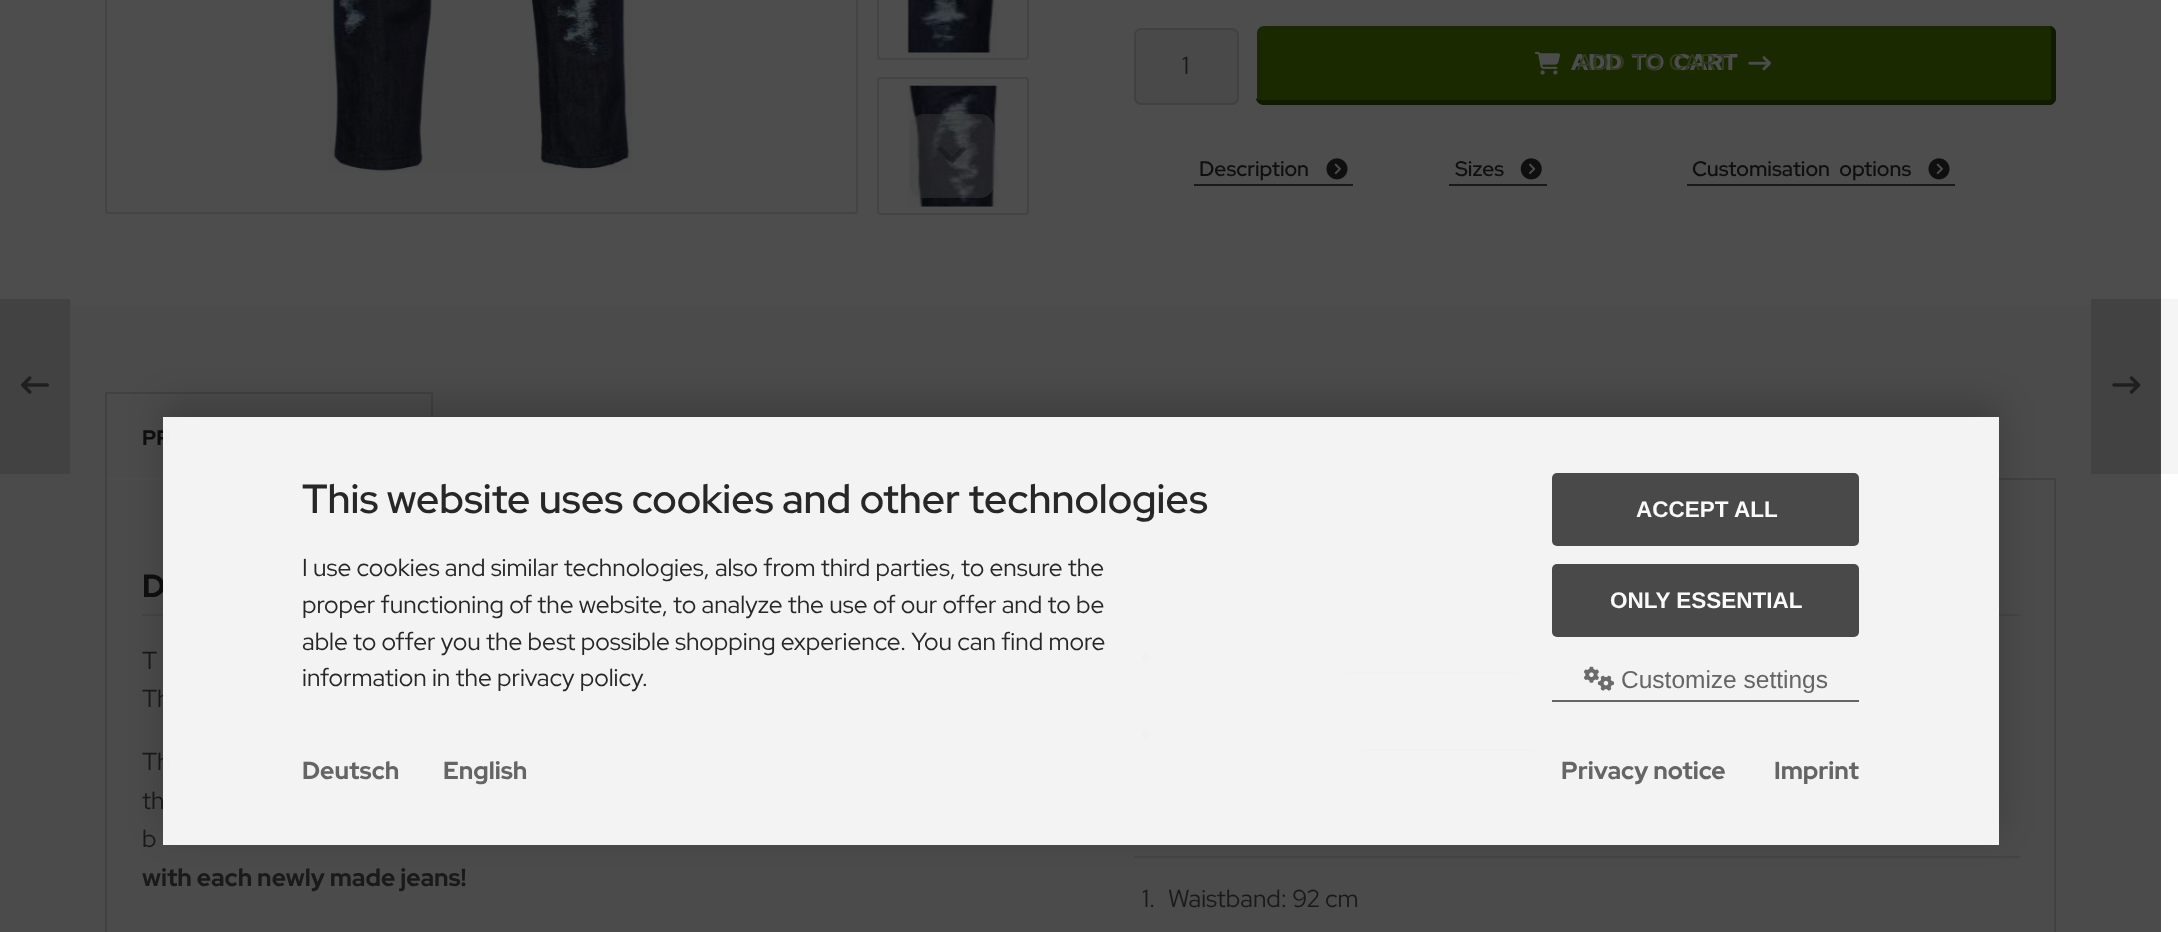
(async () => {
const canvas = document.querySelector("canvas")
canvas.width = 2178
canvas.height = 932
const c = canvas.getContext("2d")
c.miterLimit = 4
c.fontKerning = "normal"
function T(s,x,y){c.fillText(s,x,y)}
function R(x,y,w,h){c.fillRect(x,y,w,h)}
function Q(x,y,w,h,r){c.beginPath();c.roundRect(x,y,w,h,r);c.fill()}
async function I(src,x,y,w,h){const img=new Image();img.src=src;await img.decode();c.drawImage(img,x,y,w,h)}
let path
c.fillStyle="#fff"
R(0,0,2178,932)
c.fillStyle="#4d4d4d"
R(0,0,2161,305)
c.beginPath()
c.roundRect(106,-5,751,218,3)
c.strokeStyle="#444"
c.lineWidth=2
c.stroke()
await I("1.png",328,0,304,173)
c.beginPath()
c.roundRect(878,-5,150,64,3)
c.stroke()
await I("2.png",907,0,90,53)
c.beginPath()
c.roundRect(878,78,150,136,3)
c.stroke()
await I("3.png",908,85,90,122)
c.fillStyle="#44444466"
Q(910,114,84,84,14)
c.fillStyle="#0f0f0f66"
path = new Path2D("M967 149l-3.5-3l-11.5 11l-11.5-11l-3.5 3l15 15z")
c.fill(path)
c.fillStyle="#494949"
c.beginPath()
c.roundRect(1135,29,103,75,6)
c.fill()
c.strokeStyle="#414141"
c.stroke()
c.font="24.5px Red Hat Display"
c.fillStyle="#1a1a1a"
T("1",1182,74)
c.fillStyle="#1a2900"
Q(1257,26,799,79,7)
c.fillStyle="#0f1a00"
path = new Path2D("M1264 26h785c4 0 7 3 7 7v65c0 4-3 7-7 7h-785c-4 0-8-3-8-7v-65c0-4 4-7 8-7zm0 0h785c1 0 2 3 2 7v65c0 1-1 2-2 2h-785c-4 0-8-1-8-2v-65c0-4 4-7 8-7z")
c.fill(path,"evenodd")
await I("4.png",1534,51,27,24)
c.wordSpacing="5px"
c.font="900 22.75px Red Hat Display"
c.fillStyle="#4d4d4d"
T("ADD TO CART",1571,70)
c.wordSpacing="0px"
c.font="22.75px Liberation Sans"
c.fillStyle="#323a24"
T("ADD TO CART",1577,70)
await I("5.png",1748,56,23,15)
c.fillStyle="#1a1a1a"
R(1194,184,159,2)
c.font="600 21px Red Hat Display"
c.fillStyle="#0f0f0f"
T("Description",1199,176)
await I("6.png",1326,158,22,22)
c.fillStyle="#1a1a1a"
R(1449,184,98,2)
c.fillStyle="#0f0f0f"
T("Sizes",1455,176)
await I("7.png",1520,158,22,22)
c.fillStyle="#1a1a1a"
R(1687,184,268,2)
c.wordSpacing="5px"
c.fillStyle="#0f0f0f"
T("Customisation options",1692,176)
await I("6.png",1928,158,22,22)
c.fillStyle="#4b4b4b"
R(0,305,2161,627)
c.fillStyle="#424242"
R(0,299,70,175)
await I("8.png",21,376,28,18)
R(2091,299,70,175)
await I("9.png",2112,376,29,18)
c.fillStyle="#f5f5f5"
R(2161,299,17,175)
c.fillStyle="#414141"
R(105,392,327,2)
c.strokeRect(106,479,1949,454)
R(431,392,2,88)
c.fillStyle="#4d4d4d"
R(105,478,327,2)
c.fillStyle="#414141"
R(105,392,2,88)
c.wordSpacing="0px"
c.font="bold 21px Red Hat Display"
c.fillStyle="#0f0f0f"
T("PR",142,445)
c.fillStyle="#444"
R(142,614,887,2)
c.font="bold 32px Red Hat Display"
c.fillStyle="#0f0f0f"
T("D",142,597)
c.font="24.5px Red Hat Display"
c.fillStyle="#1a1a1a"
T("T",142,669)
T("Th",142,707)
T("Th",142,770)
T("th",142,809)
T("b",142,847)
c.font="bold 24.5px Red Hat Display"
T("with each newly made jeans!",142,886)
c.fillStyle="#444"
R(1134,614,886,2)
c.fillStyle="#1a1a1a"
c.beginPath()
c.arc(1145.5,657.5,4.5,0,7)
c.fill()
c.fillStyle="#14000c"
R(1348,672,168,2)
c.fillStyle="#1a1a1a"
c.beginPath()
c.arc(1145.5,734.5,4.5,0,7)
c.fill()
c.fillStyle="#14000c"
R(1363,749,170,2)
c.fillStyle="#444"
R(1134,856,886,2)
c.font="24.5px Red Hat Display"
c.fillStyle="#1a1a1a"
T("1.",1142,907)
T("Waistband: 92 cm",1168,907)
c.save()
path = new Path2D("M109 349h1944v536h-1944zm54 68h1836v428h-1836z")
c.clip(path,"evenodd")
c.fillStyle="#00000030"
c.filter="blur(17.5px)"
c.beginPath()
c.rect(163,403,1836,428)
c.fill()
c.filter="none"
c.restore()
c.fillStyle="#f9f9f9f7"
R(163,417,1836,428)
c.font="600 40.6px Red Hat Display"
c.fillStyle="#272727"
T("This website uses cookies and other technologies",302,513)
c.font="24.5px Red Hat Display"
T("I use cookies and similar technologies, also from third parties, to ensure the",302,576)
T("proper functioning of the website, to analyze the use of our offer and to be",302,613)
T("able to offer you the best possible shopping experience. You can find more",302,650)
T("information in the privacy policy.",302,686)
c.fillStyle="#494949"
Q(1552,473,307,73,5)
c.font="bold 22.5px Liberation Sans"
c.fillStyle="#fafafa"
T("ACCEPT ALL",1636,517)
c.fillStyle="#494949"
Q(1552,564,307,73,5)
c.fillStyle="#fafafa"
T("ONLY ESSENTIAL",1610,608)
c.fillStyle="#656565"
R(1552,700,307,2)
await I("10.png",1584,666,30,25)
c.font="24.5px Liberation Sans"
T("Customize settings",1621,688)
c.font="bold 24.5px Red Hat Display"
T("Deutsch",302,779)
T("English",443,779)
T("Privacy notice",1561,779)
T("Imprint",1774,779)
})()
